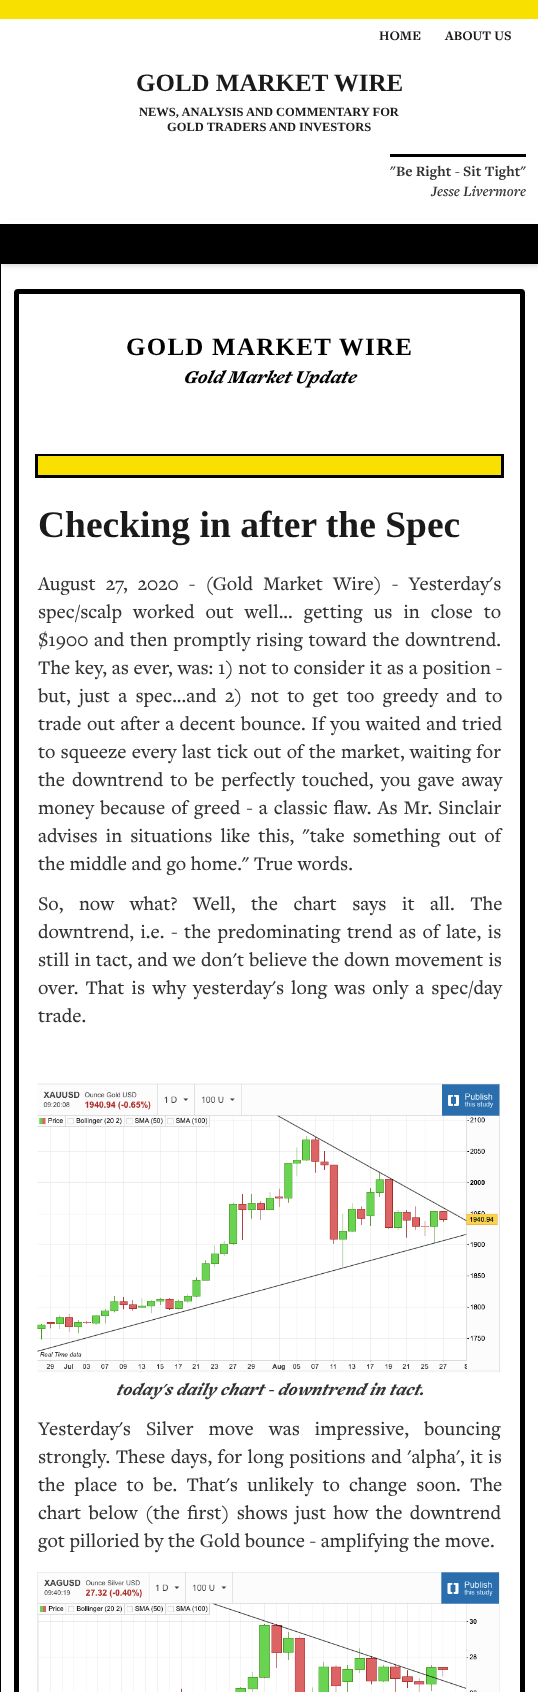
(async () => {
const canvas = document.querySelector("canvas")
canvas.width = 538
canvas.height = 1692
const c = canvas.getContext("2d")
c.miterLimit = 4
c.fontKerning = "normal"
function T(s,x,y){c.fillText(s,x,y)}
function R(x,y,w,h){c.fillRect(x,y,w,h)}
async function I(src,x,y,w,h){const img=new Image();img.src=src;await img.decode();c.drawImage(img,x,y,w,h)}
c.fillStyle="#fff"
R(0,0,538,1692)
c.fillStyle="#000"
R(0,264,1,1428)
c.fillStyle="#00000033"
c.filter="blur(3px)"
c.beginPath()
c.rect(1,225,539,40)
c.fill()
c.filter="none"
c.fillStyle="#fff"
R(0,220,538,4)
c.fillStyle="#f8e100"
R(0,0,538,19)
c.font="bold 13.75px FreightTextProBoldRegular"
c.fillStyle="#1a1a1a"
T("HOME",379,40)
T("ABOUT US",445,40)
c.font="bold 25px Liberation Serif"
T("GOLD MARKET WIRE",136,91)
c.font="bold 12.5px Liberation Serif"
T("NEWS, ANALYSIS AND COMMENTARY FOR",139,116)
T("GOLD TRADERS AND INVESTORS",167,131)
c.fillStyle="#000"
R(390,154,136,3)
c.font="bold 15px FreightTextProBoldRegular"
c.fillStyle="#333"
T("\"Be Right - Sit Tight\"",390,176)
c.font="italic 600 15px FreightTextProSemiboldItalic"
T("Jesse Livermore",431,196)
c.fillStyle="#000"
R(0,224,538,40)
c.beginPath()
c.roundRect(16.5,291.5,506,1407,1.5)
c.strokeStyle="#000"
c.lineWidth=5
c.stroke()
c.letterSpacing="1.25px"
c.font="bold 25px Liberation Serif"
T("GOLD MARKET WIRE",126,355)
c.letterSpacing="0px"
c.font="italic 900 18.75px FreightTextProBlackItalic"
T("Gold Market Update",183,383)
c.lineWidth=3
c.strokeRect(36.5,455.5,466,21)
c.fillStyle="#f8e100"
R(38,456,463,19)
c.font="bold 37.5px Liberation Serif"
c.fillStyle="#1a1a1a"
T("Checking in after the Spec",38,537)
c.wordSpacing="5.5px"
c.font="500 20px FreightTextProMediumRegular"
c.fillStyle="#333"
T("August 27, 2020 - (Gold Market Wire) - Yesterday's",38,590)
c.wordSpacing="6.5px"
T("spec/scalp worked out well... getting us in close to",38,618)
c.wordSpacing="1px"
T("$1900 and then promptly rising toward the downtrend.",38,646)
c.wordSpacing="0.25px"
T("The key, as ever, was: 1) not to consider it as a position -",38,674)
c.wordSpacing="3.75px"
T("but, just a spec...and 2) not to get too greedy and to",38,702)
c.wordSpacing="0.9px"
T("trade out after a decent bounce. If you waited and tried",38,730)
c.wordSpacing="0.75px"
T("to squeeze every last tick out of the market, waiting for",38,758)
c.wordSpacing="2.5px"
T("the downtrend to be perfectly touched, you gave away",38,786)
c.wordSpacing="1.5px"
T("money because of greed - a classic flaw. As Mr. Sinclair",38,814)
c.wordSpacing="3.5px"
T("advises in situations like this, \"take something out of",38,842)
c.wordSpacing="0px"
T("the middle and go home.\" True words.",38,870)
c.wordSpacing="11px"
T("So, now what? Well, the chart says it all. The",38,910)
c.wordSpacing="2px"
T("downtrend, i.e. - the predominating trend as of late, is",38,938)
c.wordSpacing="0.4px"
T("still in tact, and we don't believe the down movement is",38,966)
c.wordSpacing="2.5px"
T("over. That is why yesterday's long was only a spec/day",38,994)
c.wordSpacing="0px"
T("trade.",38,1022)
await I("1.png",37,1083,463,290)
c.font="italic 900 17.5px FreightTextProBlackItalic"
T("today's daily chart - downtrend in tact.",116,1395)
c.wordSpacing="10.5px"
c.font="500 20px FreightTextProMediumRegular"
T("Yesterday's Silver move was impressive, bouncing",38,1435)
c.wordSpacing="1px"
T("strongly. These days, for long positions and 'alpha', it is",38,1463)
c.wordSpacing="4.75px"
T("the place to be. That's unlikely to change soon. The",38,1491)
c.wordSpacing="2.75px"
T("chart below (the first) shows just how the downtrend",38,1519)
c.wordSpacing="0px"
T("got pilloried by the Gold bounce - amplifying the move.",38,1547)
await I("2.png",37,1572,463,120)
})()
